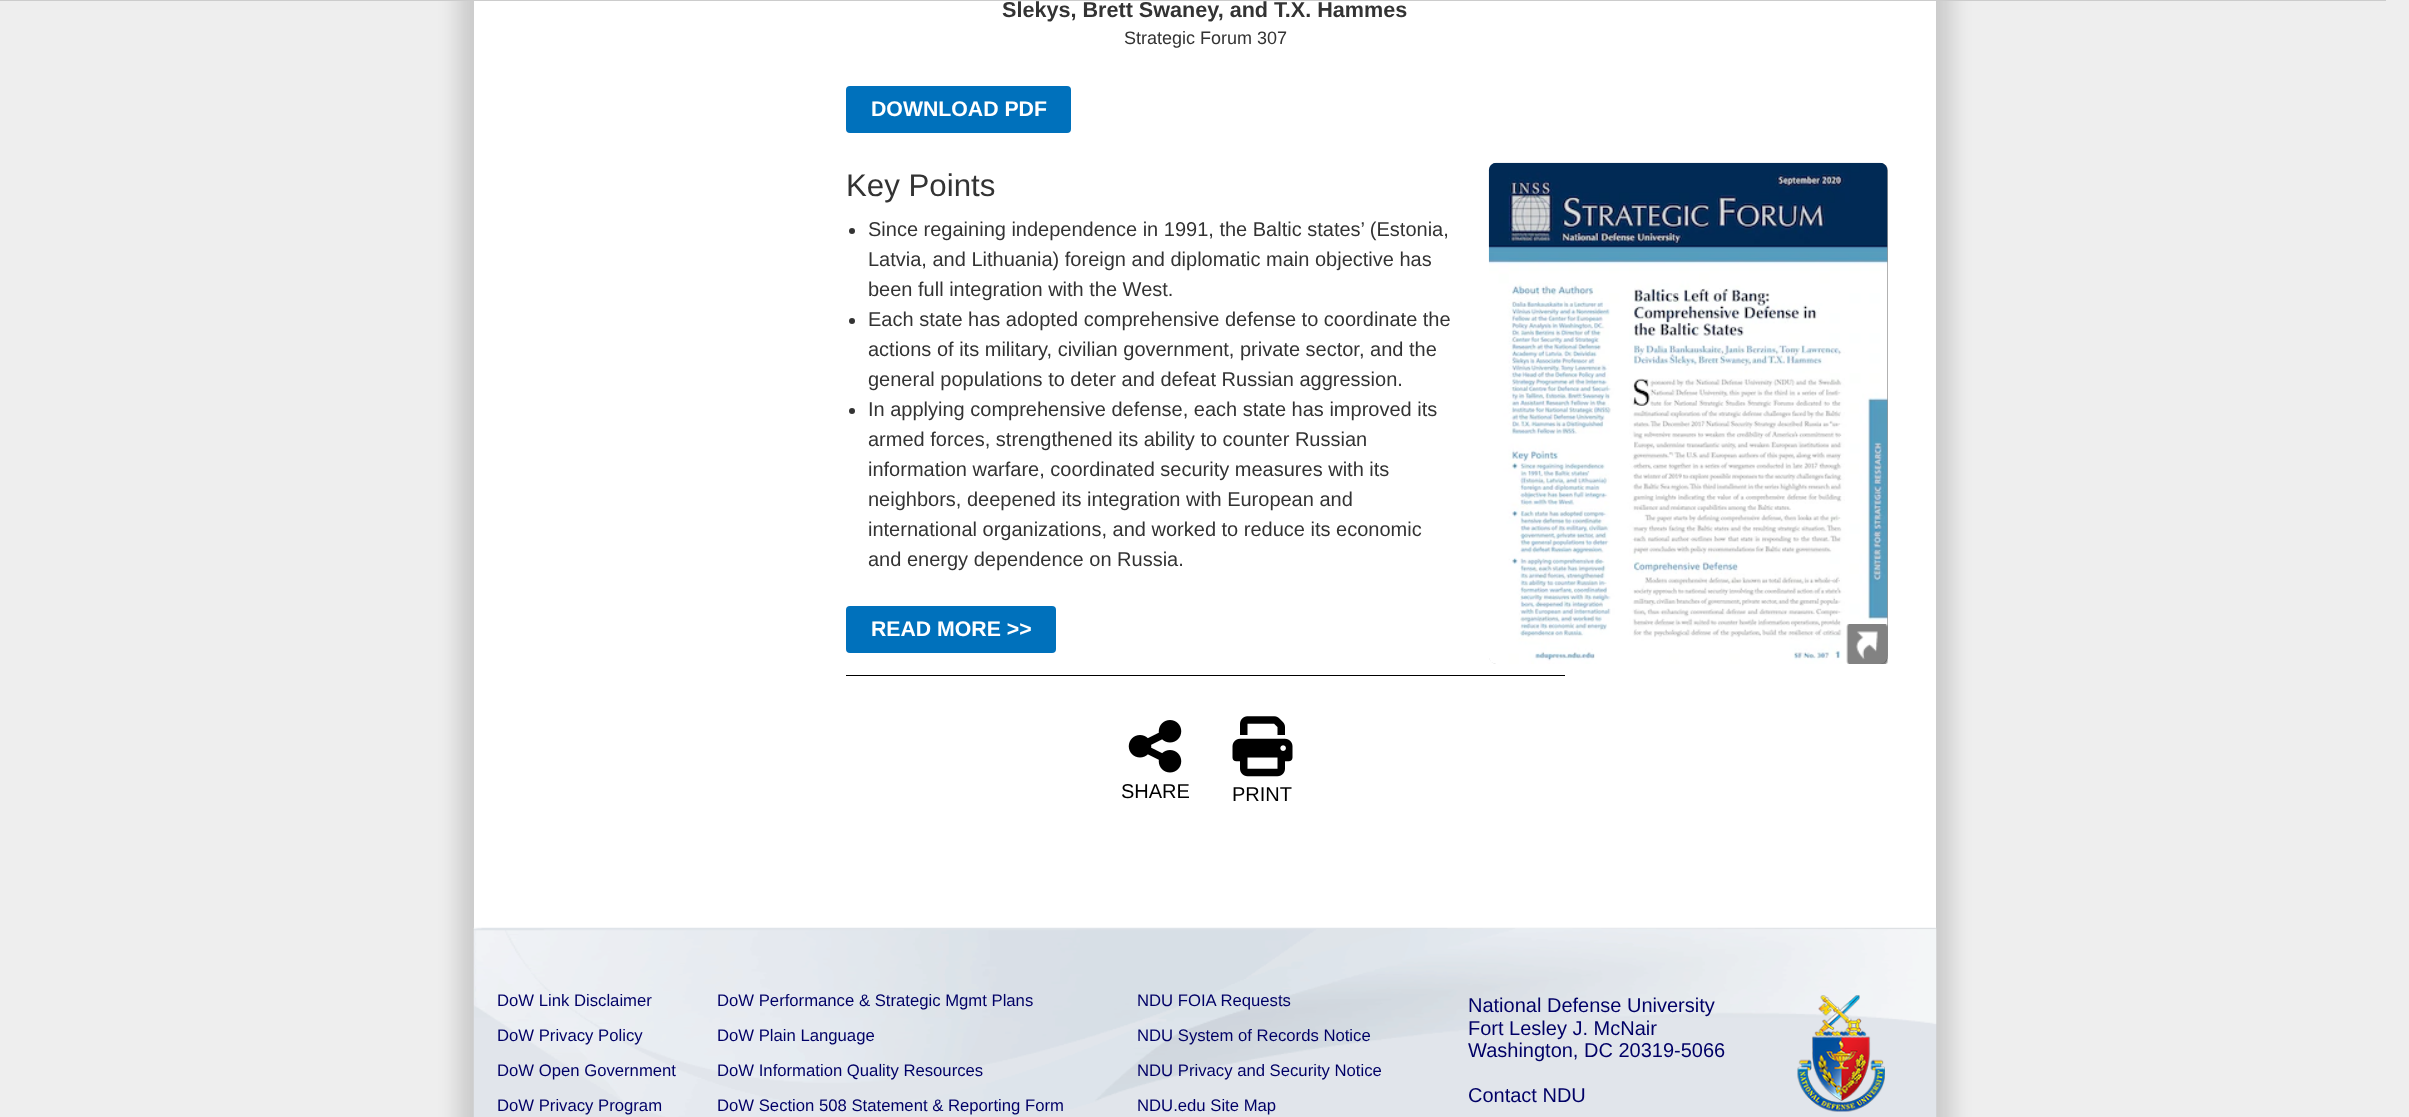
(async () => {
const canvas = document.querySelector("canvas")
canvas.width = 2409
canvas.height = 1117
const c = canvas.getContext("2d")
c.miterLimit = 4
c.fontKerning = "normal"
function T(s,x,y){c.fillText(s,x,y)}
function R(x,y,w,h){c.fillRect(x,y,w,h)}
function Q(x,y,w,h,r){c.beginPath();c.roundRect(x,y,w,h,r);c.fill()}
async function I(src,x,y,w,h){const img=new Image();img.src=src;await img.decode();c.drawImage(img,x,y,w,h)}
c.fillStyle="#eee"
R(0,0,2409,1117)
c.fillStyle="#0000001f"
c.filter="blur(9px)"
c.beginPath()
c.rect(456,-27,1473,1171)
c.fill()
c.filter="none"
c.filter="blur(9px)"
c.beginPath()
c.rect(481,-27,1473,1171)
c.fill()
c.filter="none"
c.fillStyle="#fff"
R(474,1,1462,927)
c.font="bold 21.6px Liberation Sans"
c.fillStyle="#333"
T("Šlekys, Brett Swaney, and T.X. Hammes",1002,17)
c.fillStyle="#ccc"
R(0,0,2386,1)
c.font="18px Liberation Sans"
c.fillStyle="#333"
T("Strategic Forum 307",1124,44)
c.fillStyle="#000"
R(846,675,719,1)
c.fillStyle="#0071bc"
Q(846,86,225,47,4)
c.font="bold 21.25px Liberation Sans"
c.fillStyle="#fff"
T("DOWNLOAD PDF",871,116)
c.font="31.25px Liberation Sans"
c.fillStyle="#333"
T("Key Points",846,196)
c.fillStyle="#999"
Q(1489,163,399,501,8)
await I("1.png",1488,162,400,502)
await I("2.png",1846,624,42,40)
c.fillStyle="#333"
c.beginPath()
c.arc(852,231,3,0,7)
c.fill()
c.font="20px Liberation Sans"
T("Since regaining independence in 1991, the Baltic states’ (Estonia,",868,236)
T("Latvia, and Lithuania) foreign and diplomatic main objective has",868,266)
T("been full integration with the West.",868,296)
c.beginPath()
c.arc(852,321,3,0,7)
c.fill()
T("Each state has adopted comprehensive defense to coordinate the",868,326)
T("actions of its military, civilian government, private sector, and the",868,356)
T("general populations to deter and defeat Russian aggression.",868,386)
c.beginPath()
c.arc(852,411,3,0,7)
c.fill()
T("In applying comprehensive defense, each state has improved its",868,416)
T("armed forces, strengthened its ability to counter Russian",868,446)
T("information warfare, coordinated security measures with its",868,476)
T("neighbors, deepened its integration with European and",868,506)
T("international organizations, and worked to reduce its economic",868,536)
T("and energy dependence on Russia.",868,566)
c.fillStyle="#0071bc"
Q(846,606,210,47,4)
c.font="bold 21.25px Liberation Sans"
c.fillStyle="#fff"
T("READ MORE >>",871,636)
await I("3.png",1128,720,54,53)
c.font="20px Liberation Sans"
c.fillStyle="#000"
T("SHARE",1121,798)
await I("4.png",1232,716,61,61)
T("PRINT",1232,801)
await I("5.png",473,927,1464,190)
c.font="16.7px Liberation Sans"
c.fillStyle="#006"
T("DoW Link Disclaimer",497,1006)
T("DoW Performance & Strategic Mgmt Plans",717,1006)
T("NDU FOIA Requests",1137,1006)
T("DoW Privacy Policy",497,1041)
T("DoW Plain Language",717,1041)
T("NDU System of Records Notice",1137,1041)
T("DoW Open Government",497,1076)
T("DoW Information Quality Resources",717,1076)
T("NDU Privacy and Security Notice",1137,1076)
T("DoW Privacy Program",497,1111)
T("DoW Section 508 Statement & Reporting Form",717,1111)
T("NDU.edu Site Map",1137,1111)
c.font="20px Liberation Sans"
T("National Defense University",1468,1012)
T("Fort Lesley J. McNair",1468,1035)
T("Washington, DC 20319-5066",1468,1057)
await I("6.png",1797,995,88,117)
T("Contact NDU",1468,1102)
})()
